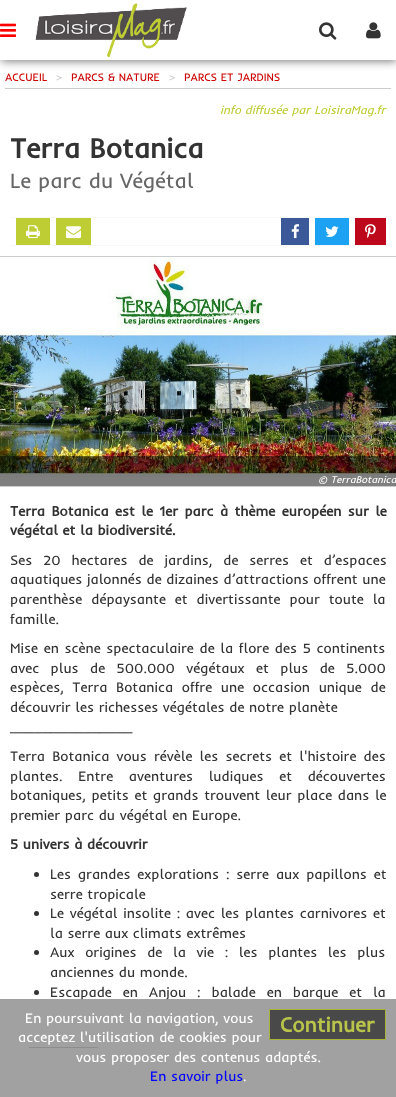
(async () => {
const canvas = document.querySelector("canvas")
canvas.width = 396
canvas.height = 1097
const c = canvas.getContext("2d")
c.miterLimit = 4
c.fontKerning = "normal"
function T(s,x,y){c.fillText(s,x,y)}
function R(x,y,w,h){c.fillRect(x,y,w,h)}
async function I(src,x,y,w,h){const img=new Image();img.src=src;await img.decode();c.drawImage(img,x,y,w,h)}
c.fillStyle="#fff"
R(0,0,396,1097)
c.fillStyle="#777"
c.filter="blur(5px)"
c.beginPath()
c.rect(1,1,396,60)
c.fill()
c.filter="none"
c.fillStyle="#fff"
R(0,0,396,60)
await I("1.png",0,23,16,14)
await I("2.png",35,3,152,54)
await I("3.png",319,22,18,18)
await I("4.png",366,22,15,17)
c.fillStyle="#ccc"
R(5,88,386,1)
c.font="11px Inder"
c.fillStyle="#c00"
T("ACCUEIL",5,81)
c.fillStyle="#ccc"
T(">",56,81)
c.fillStyle="#c00"
T("PARCS & NATURE",71,81)
c.fillStyle="#ccc"
T(">",169,81)
c.fillStyle="#c00"
T("PARCS ET JARDINS",184,81)
c.font="italic 11.9px Inder"
c.fillStyle="#bfcd35"
T("info diffusée par LoisiraMag.fr",220,114)
c.font="bold 28px Inder"
c.fillStyle="#333"
T("Terra Botanica",10,158)
c.font="21px Inder"
c.fillStyle="#666"
T("Le parc du Végétal",10,188)
c.fillStyle="#f8f8f8"
R(10,217,376,1)
R(10,245,376,1)
c.fillStyle="#bfcd35"
R(16,218,34,27)
await I("5.png",26,225,14,14)
R(56,218,35,27)
await I("6.png",66,226,15,13)
c.fillStyle="#3b5998"
R(281,218,28,27)
await I("7.png",291,224,9,15)
c.fillStyle="#1da1f2"
R(315,218,34,27)
await I("8.png",325,226,14,11)
c.fillStyle="#bd081c"
R(355,218,31,27)
await I("9.png",365,224,11,14)
c.fillStyle="#ccc"
R(0,256,396,1)
R(0,486,396,1)
await I("10.png",0,257,396,229)
c.fillStyle="#00000080"
R(0,456,396,30)
c.font="italic 10px Inder"
c.fillStyle="#fff"
T("© TerraBotanica",318,483)
c.wordSpacing="1.75px"
c.font="bold 14px Inder"
c.fillStyle="#333"
T("Terra Botanica est le 1er parc à thème européen sur le",10,516)
c.wordSpacing="0px"
T("végétal et la biodiversité.",10,535)
c.wordSpacing="6.25px"
c.font="14px Inder"
T("Ses 20 hectares de jardins, de serres et d’espaces",10,565)
c.wordSpacing="0px"
T("aquatiques jalonnés de dizaines d’attractions offrent une",10,584)
c.wordSpacing="4.25px"
T("parenthèse dépaysante et divertissante pour toute la",10,604)
c.wordSpacing="0px"
T("famille.",10,624)
c.wordSpacing="1px"
T("Mise en scène spectaculaire de la flore des 5 continents",10,653)
c.wordSpacing="6.75px"
T("avec plus de 500.000 végétaux et plus de 5.000",10,673)
c.wordSpacing="4px"
T("espèces, Terra Botanica offre une occasion unique de",10,692)
c.wordSpacing="0px"
T("découvrir les richesses végétales de notre planète",10,712)
T("_______________",10,731)
c.wordSpacing="2.5px"
T("Terra Botanica vous révèle les secrets et l'histoire des",10,761)
c.wordSpacing="11px"
T("plantes. Entre aventures ludiques et découvertes",10,781)
c.wordSpacing="1px"
T("botaniques, petits et grands trouvent leur place dans le",10,800)
c.wordSpacing="0px"
T("premier parc du végétal en Europe.",10,820)
c.font="bold 14px Inder"
T("5 univers à découvrir",10,849)
c.beginPath()
c.arc(36.5,874.5,2.5,0,7)
c.fill()
c.wordSpacing="2.25px"
c.font="14px Inder"
T("Les grandes explorations : serre aux papillons et",50,879)
c.wordSpacing="0px"
T("serre tropicale",50,899)
c.beginPath()
c.arc(36.5,913.5,2.5,0,7)
c.fill()
c.wordSpacing="1px"
T("Le végétal insolite : avec les plantes carnivores et",50,918)
c.wordSpacing="0px"
T("la serre aux climats extrêmes",50,938)
c.beginPath()
c.arc(36.5,952.5,2.5,0,7)
c.fill()
c.wordSpacing="6px"
T("Aux origines de la vie : les plantes les plus",50,957)
c.wordSpacing="0px"
T("anciennes du monde.",50,977)
c.beginPath()
c.arc(36.5,992.5,2.5,0,7)
c.fill()
c.wordSpacing="6.25px"
T("Escapade en Anjou : balade en barque et la",50,997)
R(29,1047,69,1)
c.fillStyle="#979797e6"
R(0,999,396,98)
c.wordSpacing="0px"
c.fillStyle="#fff"
T("En poursuivant la navigation, vous",25,1023)
c.fillStyle="#333333cc"
c.beginPath()
c.rect(269.5,1009.5,116,30)
c.fill()
c.strokeStyle="#a7b339"
c.stroke()
c.font="bold 21px Inder"
c.fillStyle="#b9c44b"
T("Continuer",280,1032)
c.font="14px Inder"
c.fillStyle="#fff"
T("acceptez l'utilisation de cookies pour",18,1042)
T("vous proposer des contenus adaptés.",76,1062)
c.fillStyle="#00f"
T("En savoir plus",150,1081)
c.fillStyle="#fff"
T(".",243,1081)
})()
